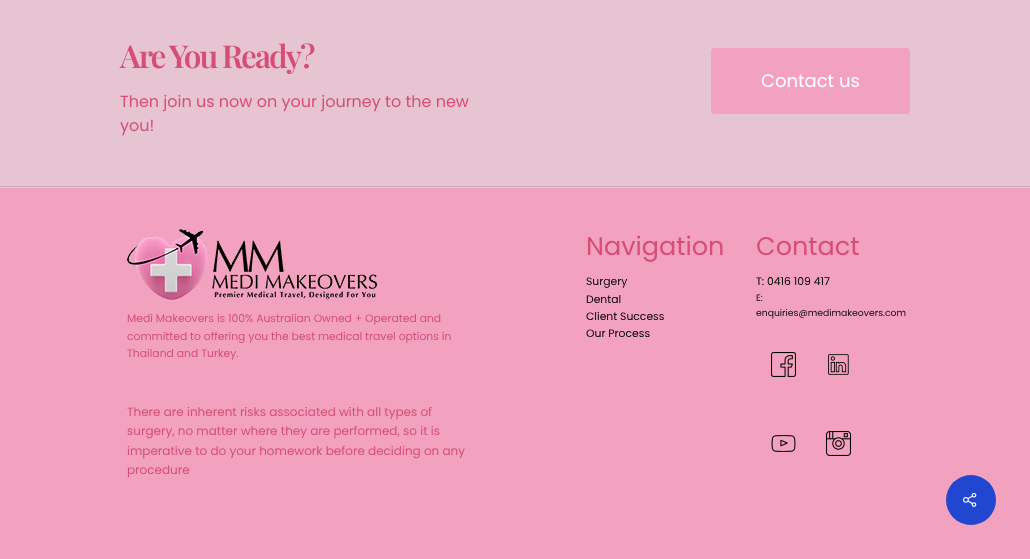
(async () => {
const canvas = document.querySelector("canvas")
canvas.width = 1030
canvas.height = 559
const c = canvas.getContext("2d")
c.miterLimit = 4
c.fontKerning = "normal"
function T(s,x,y){c.fillText(s,x,y)}
function R(x,y,w,h){c.fillRect(x,y,w,h)}
function Q(x,y,w,h,r){c.beginPath();c.roundRect(x,y,w,h,r);c.fill()}
async function I(src,x,y,w,h){const img=new Image();img.src=src;await img.decode();c.drawImage(img,x,y,w,h)}
c.fillStyle="#e7c4d1"
R(0,0,1030,559)
c.letterSpacing="-2px"
c.font="600 31.5px Playfair Display"
c.fillStyle="#d64e76"
T("Are You Ready?",120,68)
c.letterSpacing="0px"
c.font="16px Poppins"
T("Then join us now on your journey to the new",120,107)
T("you!",120,131)
c.fillStyle="#f2a2be"
Q(711,48,199,66,4)
c.font="18px Poppins"
c.fillStyle="#fff"
T("Contact us",761,87)
c.fillStyle="#d0b0bc"
R(0,186,1030,1)
c.fillStyle="#f2a2be"
R(0,188,1030,371)
c.font="25.5px Poppins"
c.fillStyle="#d64e76"
T("Navigation",586,255)
c.font="10.8px Poppins"
c.fillStyle="#0a0a0a"
T("Surgery",586,285)
c.fillStyle="#000"
T("Dental",586,303)
T("Client Success",586,320)
T("Our Process",586,337)
c.font="25.5px Poppins"
c.fillStyle="#d64e76"
T("Contact",756,255)
c.font="10.8px Poppins"
c.fillStyle="#000"
T("T: 0416 109 417",756,285)
c.font="9.25px Poppins"
c.fillStyle="#0a0a0a"
T("E:",756,301)
T("enquiries@medimakeovers.com",756,316)
await I("1.png",771,352,25,25)
await I("2.png",828,354,21,21)
await I("3.png",771,435,25,17)
await I("4.png",826,431,25,25)
await I("5.png",127,229,250,71)
c.font="10.8px Poppins"
c.fillStyle="#d64e76"
T("Medi Makeovers is 100% Australian Owned + Operated and",127,322)
T("committed to offering you the best medical travel options in",127,340)
T("Thailand and Turkey.",127,357)
c.font="12px Poppins"
T("There are inherent risks associated with all types of",127,416)
T("surgery, no matter where they are performed, so it is",127,435)
T("imperative to do your homework before deciding on any",127,455)
T("procedure",127,474)
c.fillStyle="#2147d1"
c.beginPath()
c.arc(971,500,25,0,7)
c.fill()
await I("6.png",963,492,14,15)
})()
